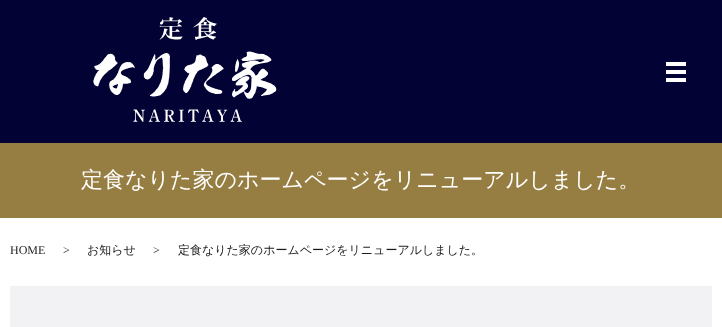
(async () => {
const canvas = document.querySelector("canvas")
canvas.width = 722
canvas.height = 327
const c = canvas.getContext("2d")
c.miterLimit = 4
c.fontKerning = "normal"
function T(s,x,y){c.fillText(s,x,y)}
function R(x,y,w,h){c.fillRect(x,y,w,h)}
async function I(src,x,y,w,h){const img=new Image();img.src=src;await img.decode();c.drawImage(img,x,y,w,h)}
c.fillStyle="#fff"
R(0,0,722,327)
c.fillStyle="#020234"
R(0,0,722,143)
await I("1.png",93,17,184,105)
c.fillStyle="#fff"
R(666,62,20,4)
R(666,70,20,4)
R(666,78,20,4)
c.fillStyle="#967d41"
R(0,143,722,75)
c.font="500 22px WenQuanYi Zen Hei"
c.fillStyle="#fff"
T("定食なりた家のホームページをリニューアルしました。",81,187)
c.font="12px Liberation Serif"
c.fillStyle="#1b1b1b"
T("HOME",10,254)
T(">",63,254)
c.font="500 12px WenQuanYi Zen Hei"
T("お知らせ",87,254)
c.font="12px Liberation Serif"
T(">",153,254)
c.font="500 12px WenQuanYi Zen Hei"
T("定食なりた家のホームページをリニューアルしました。",178,254)
c.fillStyle="#f2f2f5"
R(10,286,702,41)
})()
